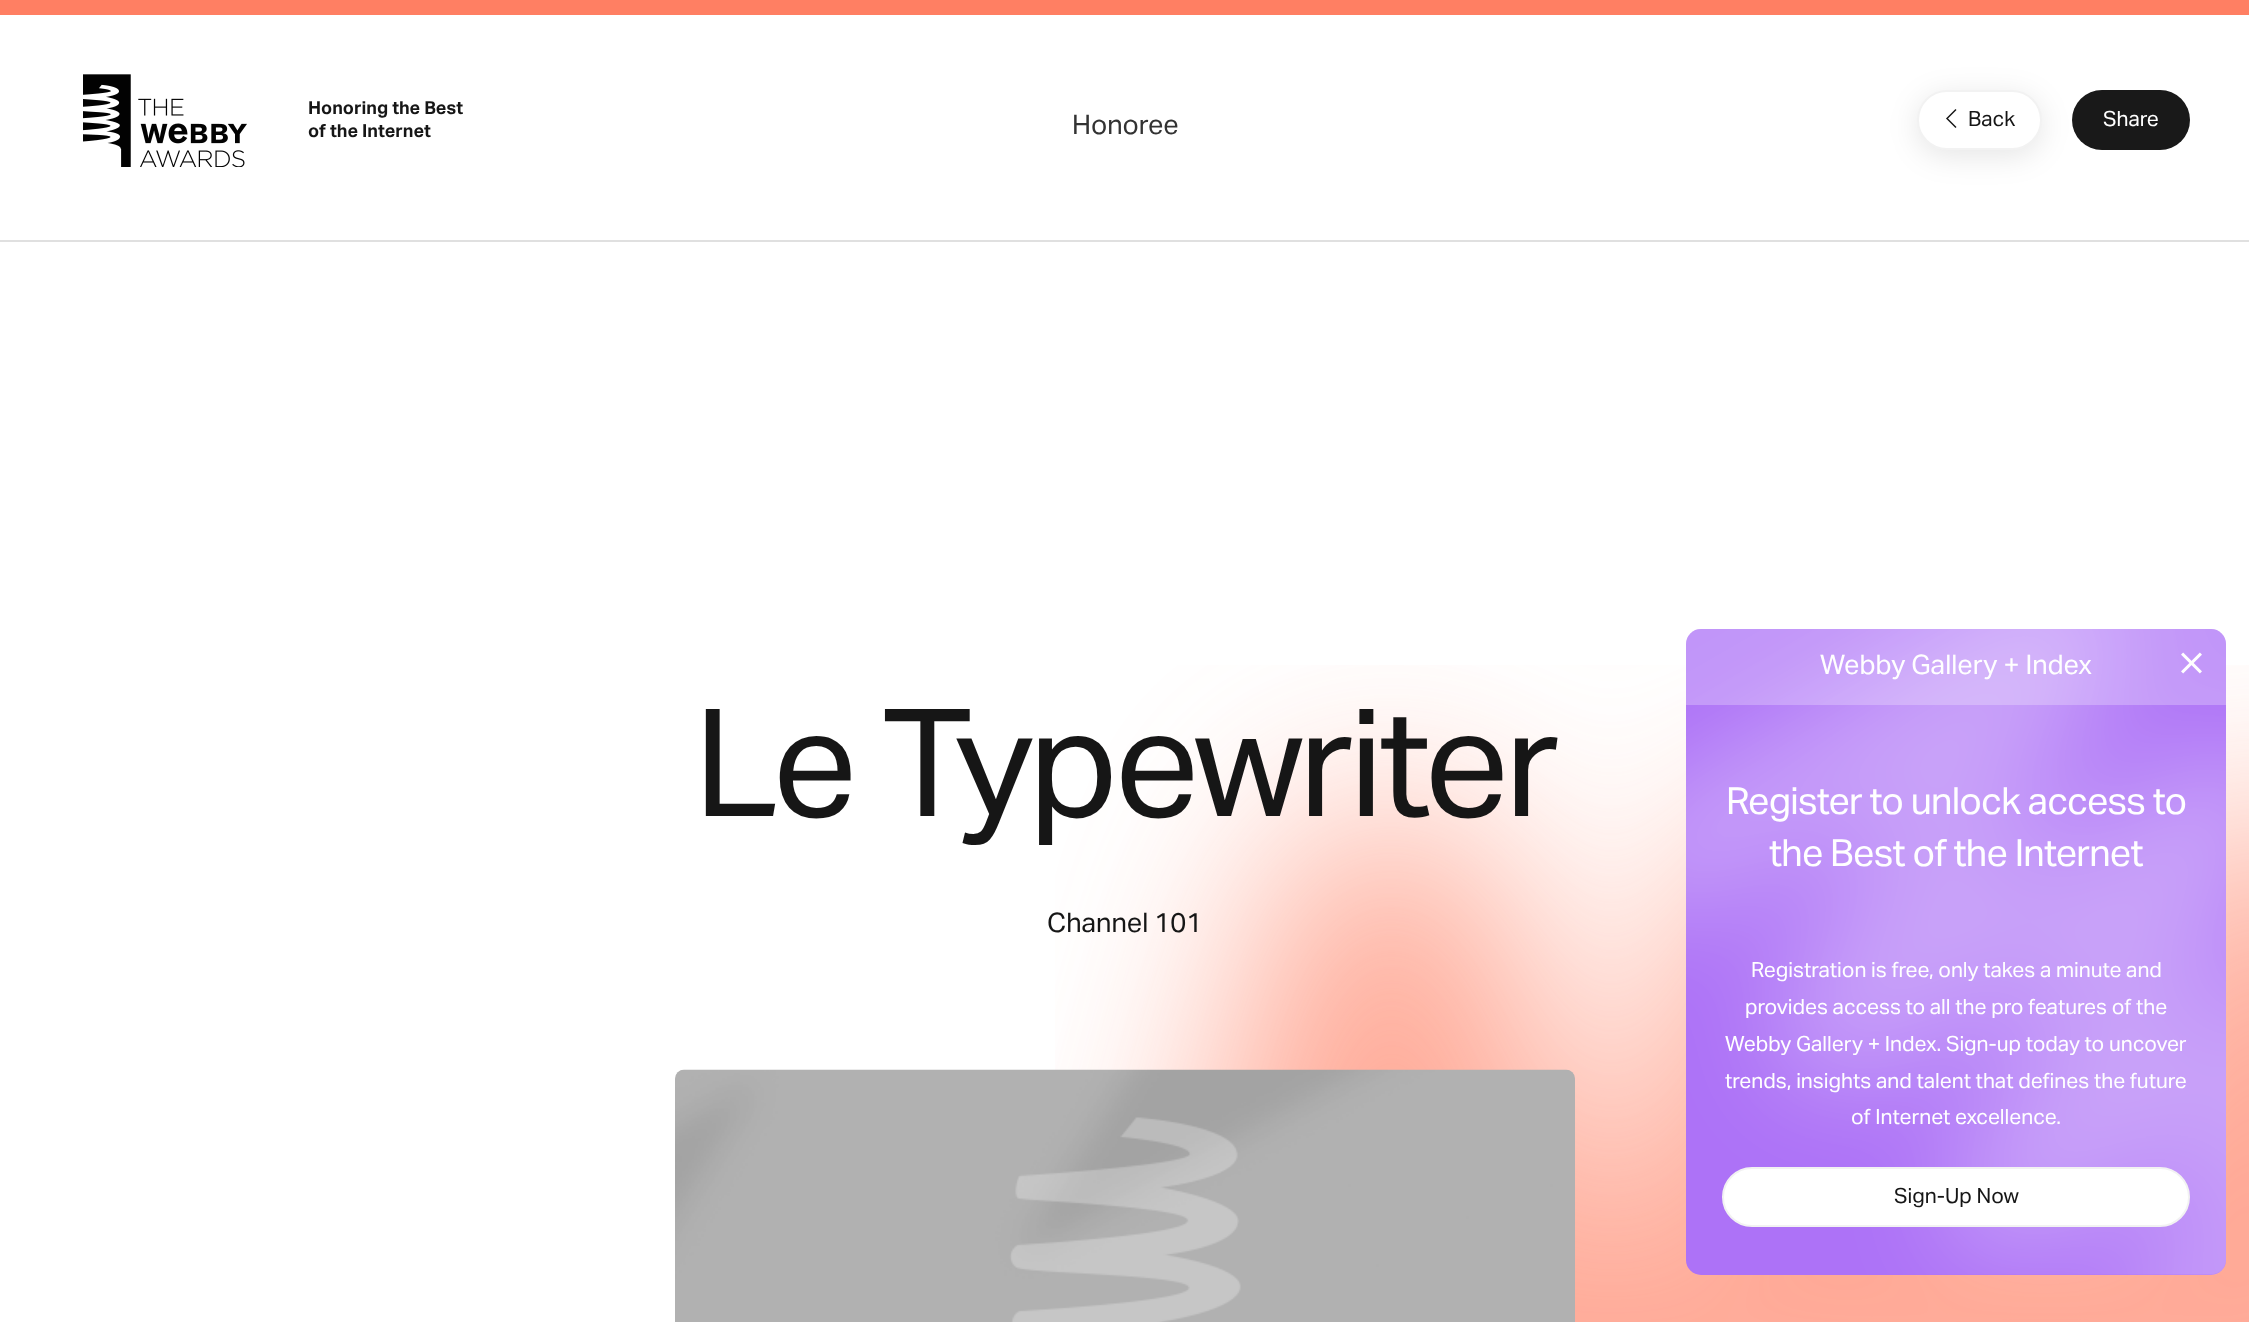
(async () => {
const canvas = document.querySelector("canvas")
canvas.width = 2249
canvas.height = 1322
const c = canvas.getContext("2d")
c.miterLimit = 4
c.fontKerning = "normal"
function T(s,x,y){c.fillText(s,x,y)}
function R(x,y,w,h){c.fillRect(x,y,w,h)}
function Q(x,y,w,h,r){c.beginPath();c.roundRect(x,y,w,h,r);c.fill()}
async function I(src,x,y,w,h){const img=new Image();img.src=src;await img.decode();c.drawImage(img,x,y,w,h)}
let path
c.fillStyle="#fff"
R(0,0,2249,1322)
c.fillStyle="#ff7f63"
R(0,0,2249,15)
c.fillStyle="#e0e0e0"
R(0,240,2249,2)
await I("1.png",83,74,164,93)
c.font="bold 18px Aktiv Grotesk"
c.fillStyle="#161616"
T("Honoring the Best",308,114)
T("of the Internet",308,137)
c.font="27px Aktiv Grotesk"
c.fillStyle="#333"
T("Honoree",1072,134)
c.fillStyle="#0000001a"
c.filter="blur(15px)"
c.beginPath()
c.roundRect(1917,96,125,60,30)
c.fill()
c.filter="none"
c.fillStyle="#fff"
c.beginPath()
c.roundRect(1918,91,123,58,29)
c.fill()
c.strokeStyle="#f2f2f2"
c.lineWidth=2
c.stroke()
path = new Path2D("M1956 127.5l-9-9l9-9")
c.strokeStyle="#191919"
c.lineWidth=1.5
c.stroke(path)
c.font="21px Aktiv Grotesk"
c.fillStyle="#161616"
T("Back",1968,126)
c.fillStyle="#191919"
Q(2072,90,118,60,30)
c.fillStyle="#fff"
T("Share",2103,126)
await I("3.png",1055,665,1194,657)
c.letterSpacing="-4.5px"
c.font="150px Aktiv Grotesk"
c.fillStyle="#161616"
T("Le Typewriter",694,816)
c.letterSpacing="0px"
c.font="27px Aktiv Grotesk"
T("Channel 101",1047,932)
await I("2.png",675,1069,900,253)
c.fillStyle="#ad72f7"
Q(1686,629,540,646,15)
await I("4.png",1686,629,540,646)
c.fillStyle="#ffffff40"
c.beginPath()
c.roundRect(1686,629,540,76,[15,15,0,0])
c.fill()
c.fillStyle="#fff"
T("Webby Gallery + Index",1820,674)
await I("5.png",2181,652,21,22)
c.letterSpacing="-0.75px"
c.font="37.5px Aktiv Grotesk"
T("Register to unlock access to",1726,814)
T("the Best of the Internet",1769,866)
c.letterSpacing="0px"
c.font="21px Aktiv Grotesk"
T("Registration is free, only takes a minute and",1751,977)
T("provides access to all the pro features of the",1745,1014)
T("Webby Gallery + Index. Sign-up today to uncover",1725,1051)
T("trends, insights and talent that defines the future",1725,1088)
T("of Internet excellence.",1851,1124)
c.beginPath()
c.roundRect(1723,1168,466,58,29)
c.fill()
c.strokeStyle="#f2f2f2"
c.lineWidth=2
c.stroke()
c.fillStyle="#161616"
T("Sign-Up Now",1894,1203)
})()
